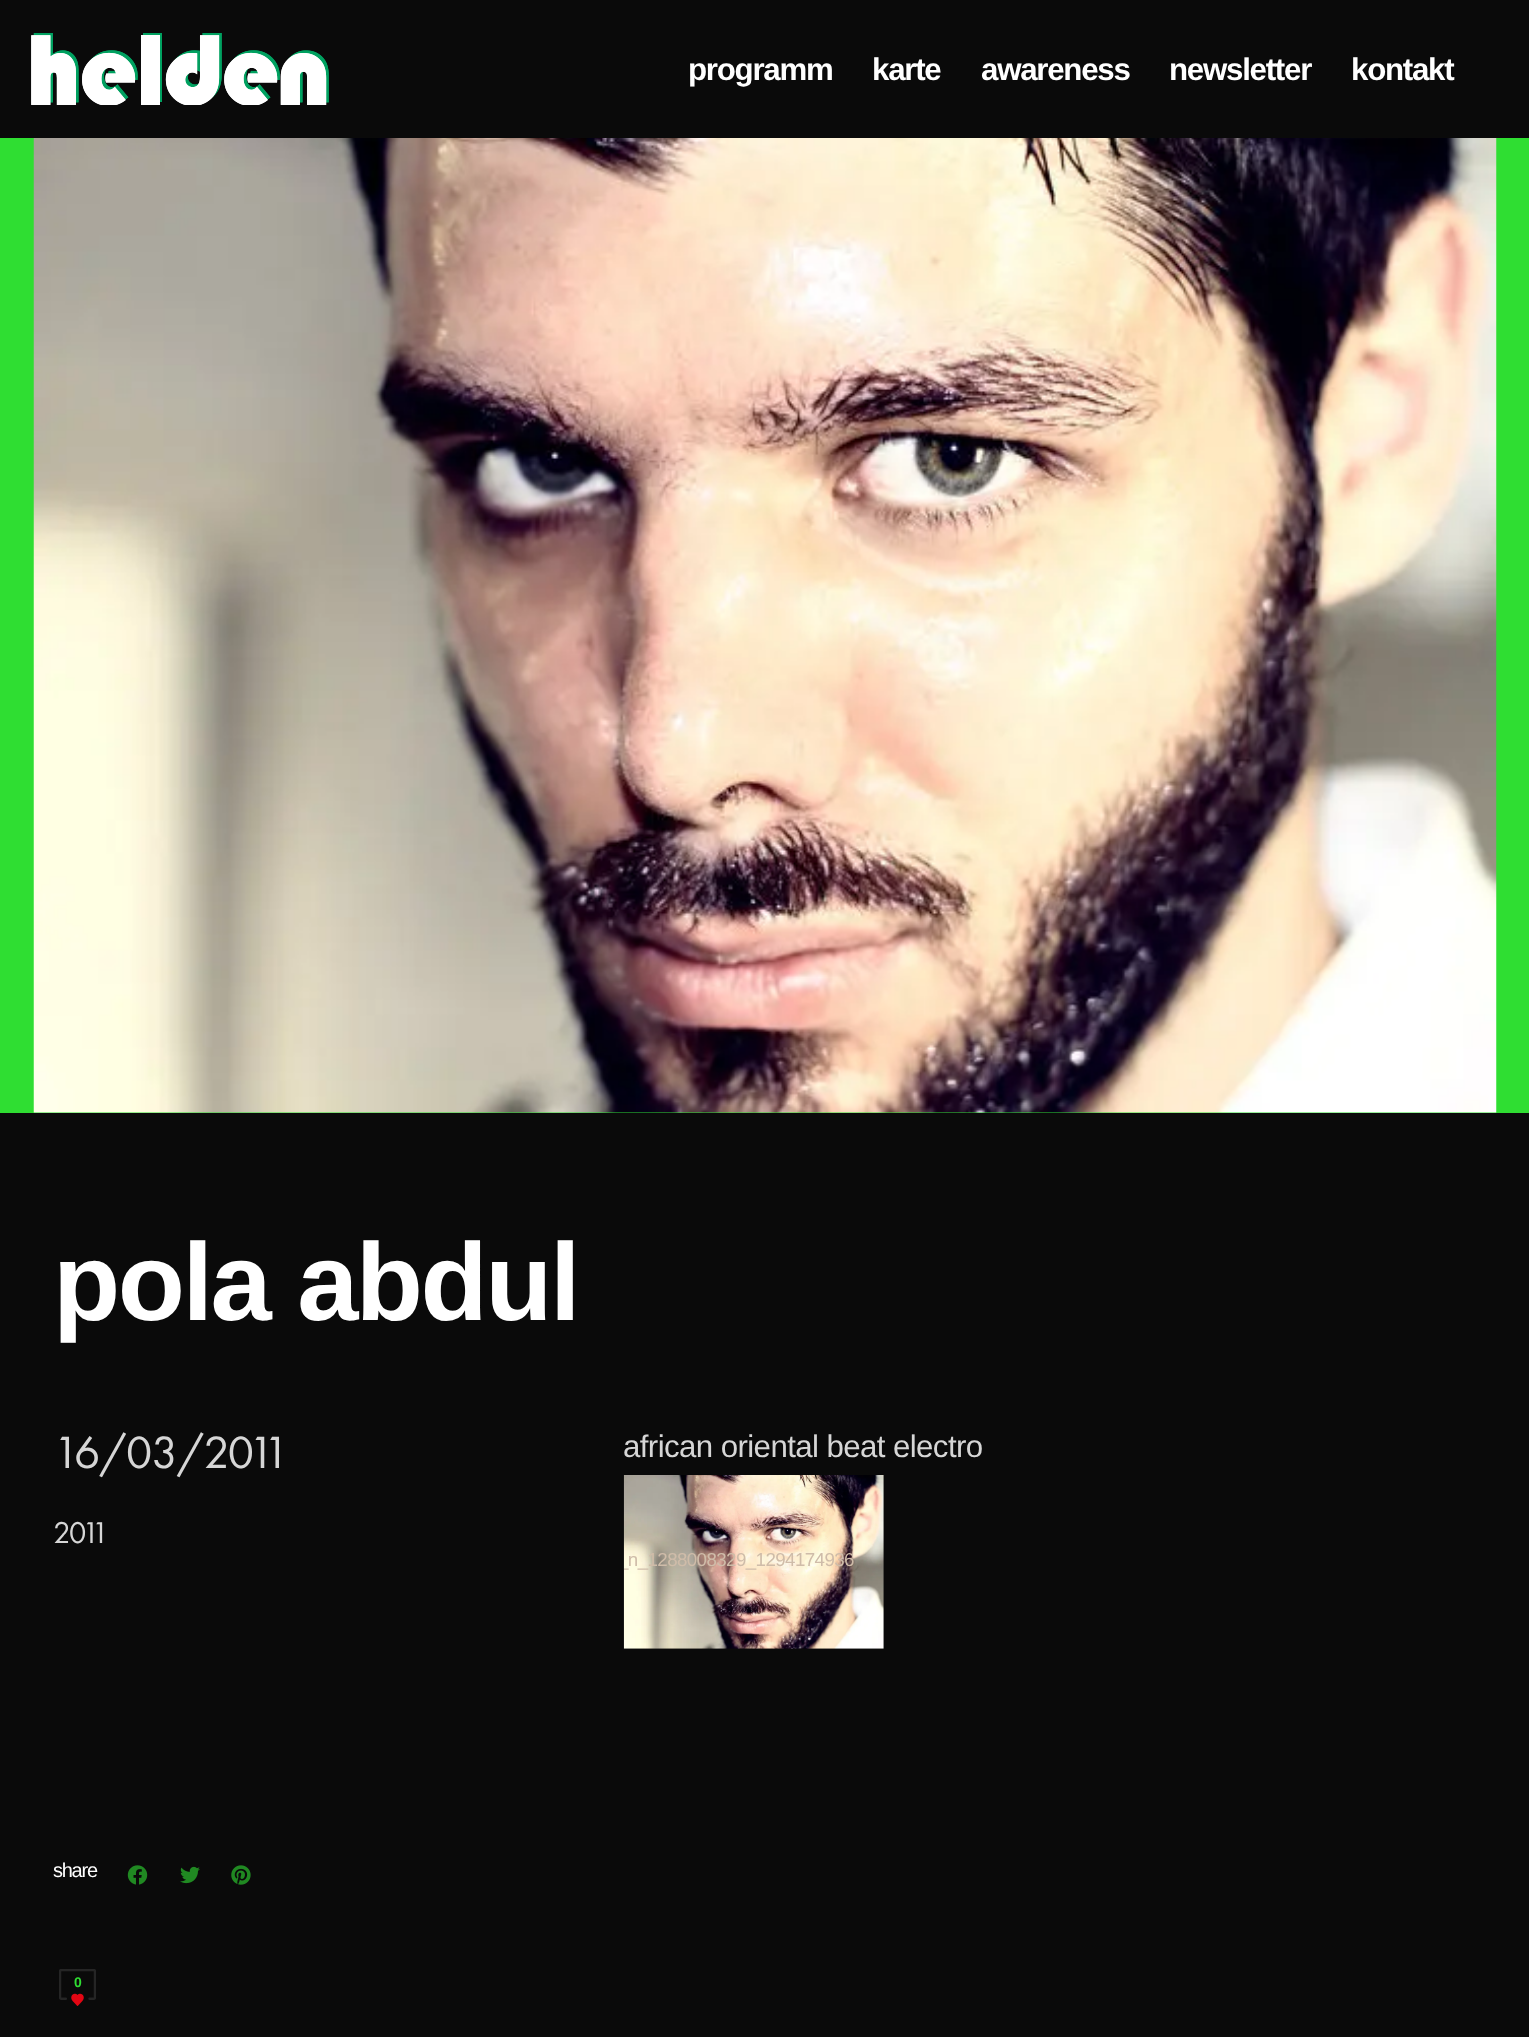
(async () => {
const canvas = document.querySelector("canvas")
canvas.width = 1529
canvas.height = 2037
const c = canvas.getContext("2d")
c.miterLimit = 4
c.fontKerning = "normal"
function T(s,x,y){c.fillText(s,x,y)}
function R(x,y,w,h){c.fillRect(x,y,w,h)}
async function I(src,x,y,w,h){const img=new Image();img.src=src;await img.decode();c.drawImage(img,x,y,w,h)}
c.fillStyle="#0a0a0a"
R(0,0,1529,2037)
await I("1.png",31,33,298,72)
c.letterSpacing="-1.25px"
c.font="bold 31.25px Liberation Sans"
c.fillStyle="#fff"
T("programm",688,80)
T("karte",872,80)
T("awareness",981,80)
T("newsletter",1169,80)
T("kontakt",1351,80)
c.fillStyle="#2fde32"
R(0,138,1529,975)
await I("2.png",33,138,1464,975)
c.letterSpacing="-2.5px"
c.font="bold 110px Liberation Sans"
c.fillStyle="#fff"
T("pola abdul",53,1320)
c.letterSpacing="-1.25px"
c.font="47px Futura PT"
c.fillStyle="#d6d6d6"
T("16/03/2011",53,1468)
c.font="31.25px Futura PT"
T("2011",53,1543)
c.letterSpacing="-0.6px"
c.font="31.25px Liberation Sans"
T("african oriental beat electro",623,1457)
await I("3.png",623,1475,261,174)
c.save()
c.beginPath()
c.rect(624,1475,260,174)
c.clip()
c.font="18.75px Liberation Sans"
c.fillStyle="#cfbca9"
T("_n_1288008329_1294174936",618,1566)
c.restore()
c.letterSpacing="-1.25px"
c.font="20px Liberation Sans"
c.fillStyle="#fff"
T("share",53,1877)
await I("4.png",127,1865,21,20)
await I("5.png",180,1866,20,18)
await I("6.png",231,1865,20,20)
await I("7.png",59,1969,37,37)
c.letterSpacing="-0.6px"
c.font="bold 14px Liberation Sans"
c.fillStyle="#2fde32"
T("0",74,1987)
})()
